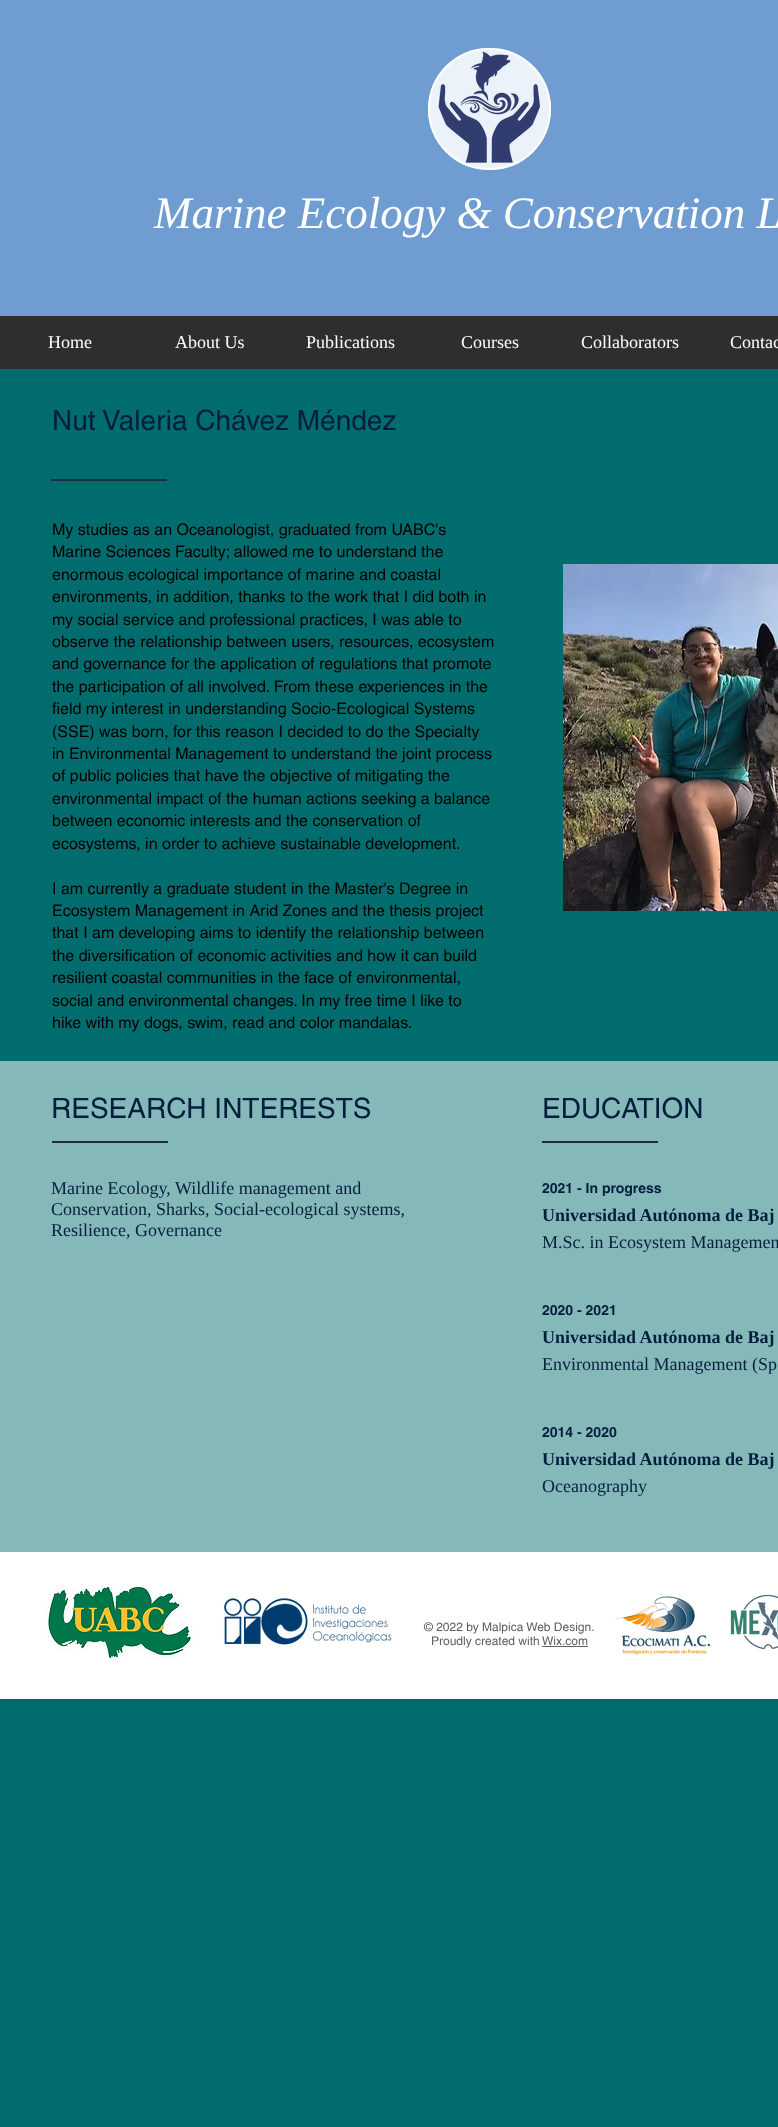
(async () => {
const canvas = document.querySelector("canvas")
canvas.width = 778
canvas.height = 2127
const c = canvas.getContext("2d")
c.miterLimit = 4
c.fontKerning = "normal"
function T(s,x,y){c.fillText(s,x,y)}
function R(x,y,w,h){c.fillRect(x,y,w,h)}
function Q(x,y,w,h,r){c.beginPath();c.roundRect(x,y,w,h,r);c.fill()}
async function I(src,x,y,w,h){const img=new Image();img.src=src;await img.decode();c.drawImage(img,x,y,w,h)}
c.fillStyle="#006c6d"
R(0,0,778,2127)
c.fillStyle="#709dd1"
R(0,0,778,316)
c.fillStyle="#ecf2f9"
Q(428,48,123,122,61)
c.beginPath()
c.roundRect(429,49,121,120,60)
c.strokeStyle="#ffffffde"
c.lineWidth=2
c.stroke()
await I("1.png",438,51,102,112)
c.font="italic 45px Liberation Serif"
c.fillStyle="#fff"
T("Marine Ecology & Conservation L",154,228)
c.fillStyle="#2f2e2e"
R(0,316,778,53)
c.font="18px Liberation Serif"
c.fillStyle="#fff"
T("Home",48,348)
T("About Us",175,348)
T("Publications",306,348)
T("Courses",461,348)
T("Collaborators",581,348)
T("Contac",730,348)
c.font="28px helvetica"
c.fillStyle="#041f3e"
T("Nut Valeria Chávez Méndez",52,430)
c.fillStyle="#1d2d3c"
R(51,479,116,2)
c.font="16px helvetica"
c.fillStyle="#000"
T("My studies as an Oceanologist, graduated from UABC's",52,535)
T("Marine Sciences Faculty; allowed me to understand the",52,557)
T("enormous ecological importance of marine and coastal",52,580)
T("environments, in addition, thanks to the work that I did both in",52,602)
T("my social service and professional practices, I was able to",52,625)
T("observe the relationship between users, resources, ecosystem",52,647)
T("and governance for the application of regulations that promote",52,669)
T("the participation of all involved. From these experiences in the",52,692)
T("field my interest in understanding Socio-Ecological Systems",52,714)
T("(SSE) was born, for this reason I decided to do the Specialty",52,737)
T("in Environmental Management to understand the joint process",52,759)
T("of public policies that have the objective of mitigating the",52,781)
T("environmental impact of the human actions seeking a balance",52,804)
T("between economic interests and the conservation of",52,826)
T("ecosystems, in order to achieve sustainable development.",52,849)
T("I am currently a graduate student in the Master's Degree in",52,894)
T("Ecosystem Management in Arid Zones and the thesis project",52,916)
T("that I am developing aims to identify the relationship between",52,938)
T("the diversification of economic activities and how it can build",52,961)
T("resilient coastal communities in the face of environmental,",52,983)
T("social and environmental changes. In my free time I like to",52,1006)
T("hike with my dogs, swim, read and color mandalas.",52,1028)
await I("2.png",563,564,215,347)
c.fillStyle="#85b8b9"
R(0,1061,778,491)
c.font="28px helvetica"
c.fillStyle="#041f3e"
T("RESEARCH INTERESTS",51,1118)
T("EDUCATION",542,1118)
c.fillStyle="#1d2d3c"
R(52,1141,116,2)
R(542,1141,116,2)
c.font="18px Liberation Serif"
c.fillStyle="#041f3e"
T("Marine Ecology, Wildlife management and",51,1194)
T("Conservation, Sharks, Social-ecological systems,",51,1215)
T("Resilience, Governance",51,1236)
c.font="bold 14px helvetica"
T("2021 - In progress",542,1193)
c.font="bold 18px Liberation Serif"
T("Universidad Autónoma de Baj",542,1221)
c.font="18px Liberation Serif"
T("M.Sc. in Ecosystem Managemen",542,1248)
c.font="bold 14px helvetica"
T("2020 - 2021",542,1315)
c.font="bold 18px Liberation Serif"
T("Universidad Autónoma de Baj",542,1343)
c.font="18px Liberation Serif"
T("Environmental Management (Sp",542,1370)
c.font="bold 14px helvetica"
T("2014 - 2020",542,1437)
c.font="bold 18px Liberation Serif"
T("Universidad Autónoma de Baj",542,1465)
c.font="18px Liberation Serif"
T("Oceanography",542,1492)
c.fillStyle="#fff"
R(0,1552,778,147)
await I("3.png",46,1585,147,74)
await I("4.png",222,1598,170,47)
c.font="12px helvetica"
c.fillStyle="#606060"
T("© 2022 by Malpica Web Design.",424,1631)
T("Proudly created with",431,1645)
T("Wix.com",542,1645)
R(542,1646,46,1)
await I("5.png",614,1596,97,59)
await I("6.png",730,1594,48,56)
})()
